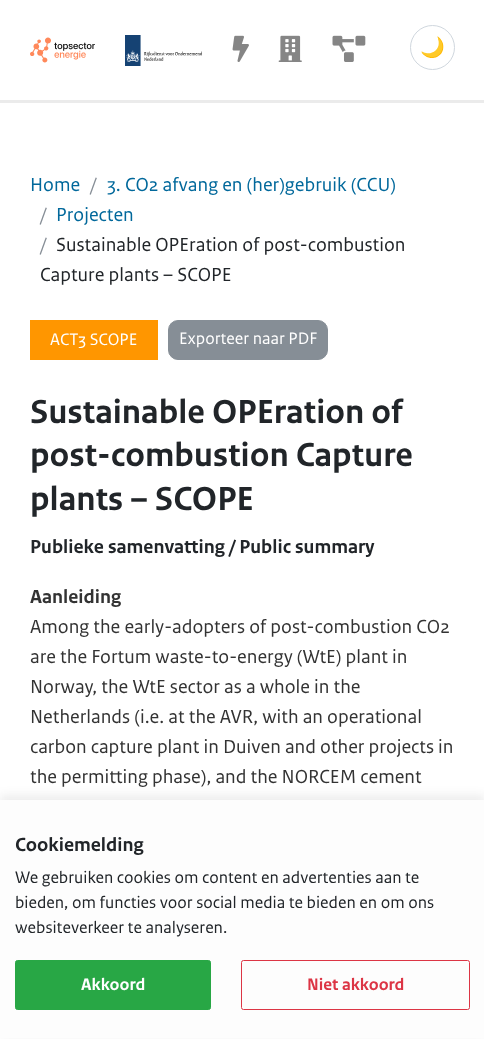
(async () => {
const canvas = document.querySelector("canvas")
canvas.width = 484
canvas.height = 1039
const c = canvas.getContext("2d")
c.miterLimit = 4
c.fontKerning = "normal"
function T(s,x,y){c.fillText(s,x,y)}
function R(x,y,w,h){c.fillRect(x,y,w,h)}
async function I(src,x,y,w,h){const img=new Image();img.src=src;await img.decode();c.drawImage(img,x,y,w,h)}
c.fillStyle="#fff"
R(0,0,484,1039)
c.fillStyle="#ebebeb"
R(0,100,484,3)
await I("1.png",30,37,65,26)
await I("2.png",125,35,77,31)
await I("3.png",232,35,17,27)
await I("4.png",278,35,24,27)
await I("5.png",332,35,34,27)
c.beginPath()
c.arc(432.5,47.5,22,0,7)
c.strokeStyle="#d0d7de"
c.stroke()
c.font="20px Noto Color Emoji"
c.fillStyle="#24292f"
T("🌙",420,54)
c.font="20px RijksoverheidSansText"
c.fillStyle="#01689b"
T("Home",30,191)
c.fillStyle="#868e96"
T("/",90,191)
c.fillStyle="#01689b"
T("3. CO2 afvang en (her)gebruik (CCU)",107,191)
c.fillStyle="#868e96"
T("/",40,221)
c.fillStyle="#01689b"
T("Projecten",56,221)
c.fillStyle="#868e96"
T("/",40,251)
c.fillStyle="#212529"
T("Sustainable OPEration of post-combustion",56,251)
T("Capture plants – SCOPE",40,281)
c.fillStyle="#ff9600"
R(30,320,128,40)
c.font="17.5px RijksoverheidSansText"
c.fillStyle="#fff"
T("ACT3 SCOPE",50,345)
c.fillStyle="#868e96"
c.beginPath()
c.roundRect(168.5,320.5,159,39,9.5)
c.fill()
c.strokeStyle="#868e96"
c.stroke()
c.fillStyle="#fff"
T("Exporteer naar PDF",179,344)
c.font="bold 35px RijksoverheidSansText"
c.fillStyle="#212529"
T("Sustainable OPEration of",30,423)
T("post-combustion Capture",30,466)
T("plants – SCOPE",30,510)
c.font="bold 20px RijksoverheidSansText"
T("Publieke samenvatting / Public summary",30,553)
c.fillStyle="#333"
T("Aanleiding",30,603)
c.font="20px RijksoverheidSansText"
T("Among the early-adopters of post-combustion CO2",30,633)
T("are the Fortum waste-to-energy (WtE) plant in",30,663)
T("Norway, the WtE sector as a whole in the",30,693)
T("Netherlands (i.e. at the AVR, with an operational",30,723)
T("carbon capture plant in Duiven and other projects in",30,753)
T("the permitting phase), and the NORCEM cement",30,783)
c.fillStyle="#1f1f1f14"
c.filter="blur(5px)"
c.beginPath()
c.rect(0,795,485,240)
c.fill()
c.filter="none"
c.fillStyle="#fdfdfd"
R(0,800,484,238)
c.font="bold 20px RijksoverheidSansText"
c.fillStyle="#212529"
T("Cookiemelding",15,851)
c.font="17.5px RijksoverheidSansText"
T("We gebruiken cookies om content en advertenties aan te",15,883)
T("bieden, om functies voor social media te bieden en om ons",15,908)
T("websiteverkeer te analyseren.",15,933)
c.fillStyle="#28a745"
c.beginPath()
c.roundRect(15.5,960.5,195,49,2)
c.fill()
c.strokeStyle="#28a745"
c.stroke()
c.font="bold 17.5px RijksoverheidSansText"
c.fillStyle="#fff"
T("Akkoord",81,990)
c.beginPath()
c.roundRect(241.5,960.5,228,49,2)
c.strokeStyle="#dc3545"
c.stroke()
c.fillStyle="#dc3545"
T("Niet akkoord",307,990)
})()
